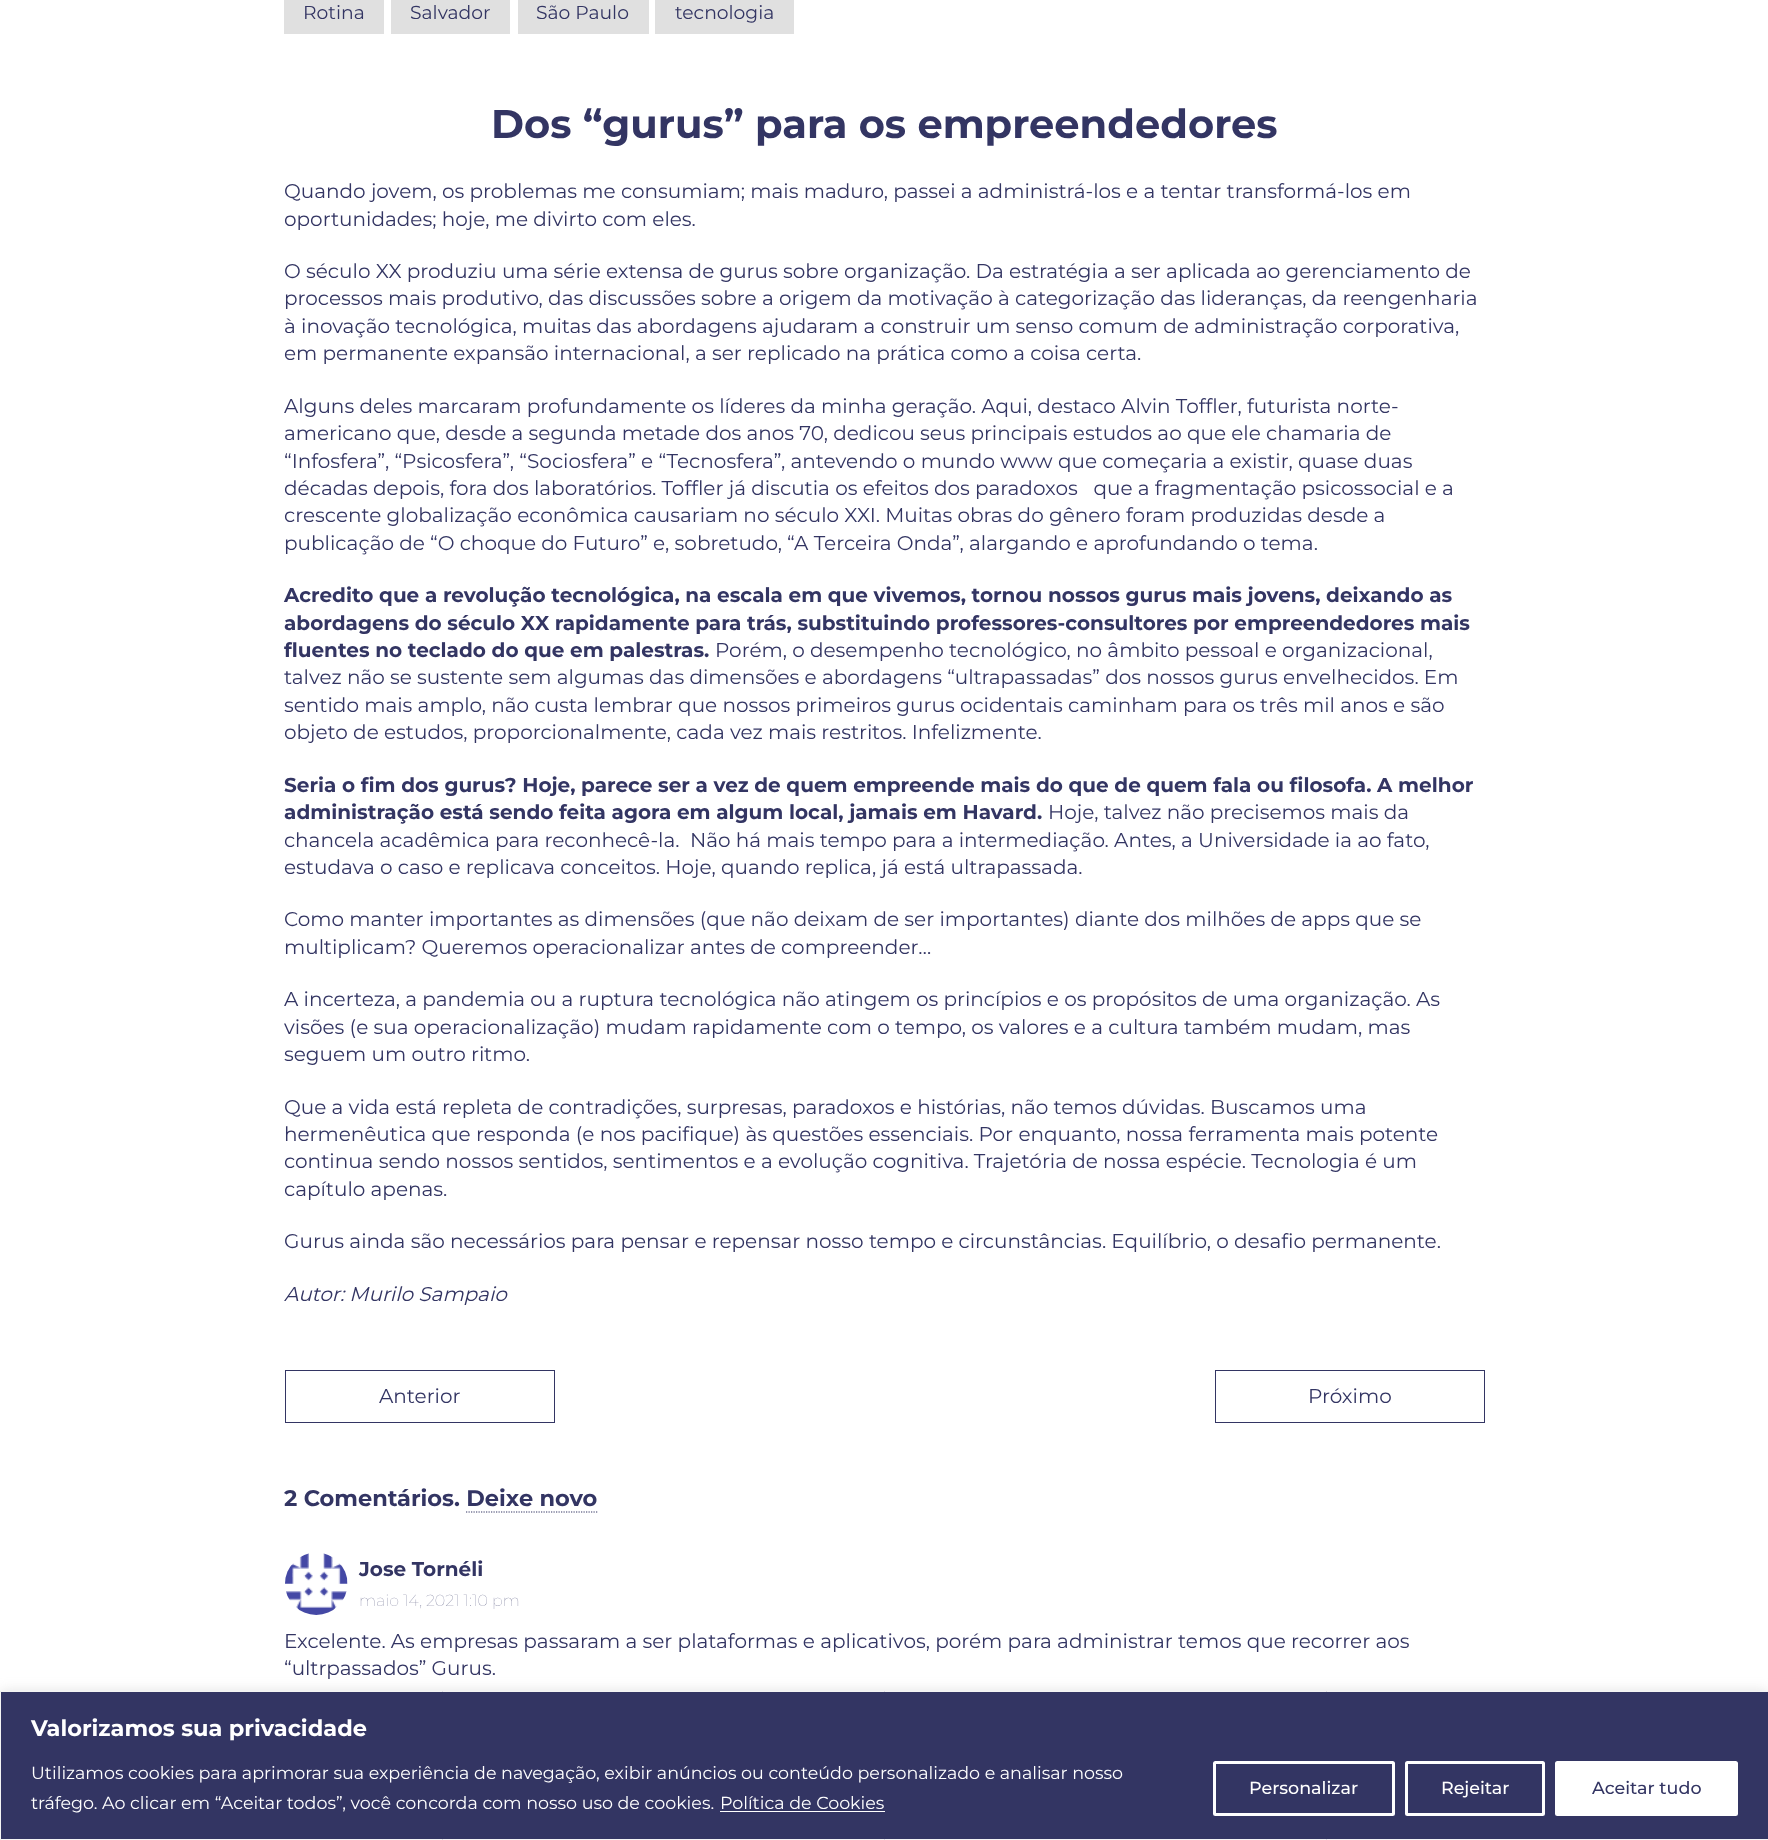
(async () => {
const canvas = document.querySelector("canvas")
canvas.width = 1768
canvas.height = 1840
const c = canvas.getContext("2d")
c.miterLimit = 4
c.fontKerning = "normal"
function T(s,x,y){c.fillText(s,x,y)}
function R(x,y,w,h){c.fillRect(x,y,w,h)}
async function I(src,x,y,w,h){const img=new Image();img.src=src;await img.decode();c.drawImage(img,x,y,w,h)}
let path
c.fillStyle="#fff"
R(0,0,1768,1840)
c.fillStyle="#e0e0e0"
R(284,0,100,34)
c.font="18.75px Montserrat"
c.fillStyle="#333563"
T("Rotina",303,19)
c.fillStyle="#e0e0e0"
R(391,0,119,34)
c.fillStyle="#333563"
T("Salvador",410,19)
c.fillStyle="#e0e0e0"
R(518,0,131,34)
c.fillStyle="#333563"
T("São Paulo",536,19)
c.fillStyle="#e0e0e0"
R(655,0,139,34)
c.fillStyle="#333563"
T("tecnologia",675,19)
c.font="bold 40px Montserrat"
T("Dos “gurus” para os empreendedores",491,138)
c.font="20px Montserrat"
T("Quando jovem, os problemas me consumiam; mais maduro, passei a administrá-los e a tentar transformá-los em",284,198)
T("oportunidades; hoje, me divirto com eles.",284,226)
T("O século XX produziu uma série extensa de gurus sobre organização. Da estratégia a ser aplicada ao gerenciamento de",284,278)
T("processos mais produtivo, das discussões sobre a origem da motivação à categorização das lideranças, da reengenharia",284,305)
T("à inovação tecnológica, muitas das abordagens ajudaram a construir um senso comum de administração corporativa,",284,333)
T("em permanente expansão internacional, a ser replicado na prática como a coisa certa.",284,360)
T("Alguns deles marcaram profundamente os líderes da minha geração. Aqui, destaco Alvin Toffler, futurista norte-",284,413)
T("americano que, desde a segunda metade dos anos 70, dedicou seus principais estudos ao que ele chamaria de",284,440)
T("“Infosfera”, “Psicosfera”, “Sociosfera” e “Tecnosfera”, antevendo o mundo www que começaria a existir, quase duas",284,468)
T("décadas depois, fora dos laboratórios. Toffler já discutia os efeitos dos paradoxos   que a fragmentação psicossocial e a",284,495)
T("crescente globalização econômica causariam no século XXI. Muitas obras do gênero foram produzidas desde a",284,522)
T("publicação de “O choque do Futuro” e, sobretudo, “A Terceira Onda”, alargando e aprofundando o tema.",284,550)
c.font="bold 20px Montserrat"
T("Acredito que a revolução tecnológica, na escala em que vivemos, tornou nossos gurus mais jovens, deixando as",284,602)
T("abordagens do século XX rapidamente para trás, substituindo professores-consultores por empreendedores mais",284,630)
T("fluentes no teclado do que em palestras.",284,657)
c.font="20px Montserrat"
T("Porém, o desempenho tecnológico, no âmbito pessoal e organizacional,",715,657)
T("talvez não se sustente sem algumas das dimensões e abordagens “ultrapassadas” dos nossos gurus envelhecidos. Em",284,684)
T("sentido mais amplo, não custa lembrar que nossos primeiros gurus ocidentais caminham para os três mil anos e são",284,712)
T("objeto de estudos, proporcionalmente, cada vez mais restritos. Infelizmente.",284,739)
c.font="bold 20px Montserrat"
T("Seria o fim dos gurus? Hoje, parece ser a vez de quem empreende mais do que de quem fala ou filosofa. A melhor",284,792)
T("administração está sendo feita agora em algum local, jamais em Havard.",284,819)
c.font="20px Montserrat"
T("Hoje, talvez não precisemos mais da",1048,819)
T("chancela acadêmica para reconhecê-la.  Não há mais tempo para a intermediação. Antes, a Universidade ia ao fato,",284,847)
T("estudava o caso e replicava conceitos. Hoje, quando replica, já está ultrapassada.",284,874)
T("Como manter importantes as dimensões (que não deixam de ser importantes) diante dos milhões de apps que se",284,926)
T("multiplicam? Queremos operacionalizar antes de compreender…",284,954)
T("A incerteza, a pandemia ou a ruptura tecnológica não atingem os princípios e os propósitos de uma organização. As",284,1006)
T("visões (e sua operacionalização) mudam rapidamente com o tempo, os valores e a cultura também mudam, mas",284,1034)
T("seguem um outro ritmo.",284,1061)
T("Que a vida está repleta de contradições, surpresas, paradoxos e histórias, não temos dúvidas. Buscamos uma",284,1114)
T("hermenêutica que responda (e nos pacifique) às questões essenciais. Por enquanto, nossa ferramenta mais potente",284,1141)
T("continua sendo nossos sentidos, sentimentos e a evolução cognitiva. Trajetória de nossa espécie. Tecnologia é um",284,1168)
T("capítulo apenas.",284,1196)
T("Gurus ainda são necessários para pensar e repensar nosso tempo e circunstâncias. Equilíbrio, o desafio permanente.",284,1248)
c.font="italic 20px Montserrat"
T("Autor: Murilo Sampaio",284,1301)
c.strokeStyle="#333563"
c.strokeRect(285.5,1370.5,269,52)
c.font="20px Montserrat"
T("Anterior",379,1403)
c.strokeRect(1215.5,1370.5,269,52)
T("Próximo",1308,1403)
c.font="bold 22.5px Montserrat"
T("2 Comentários. Deixe novo",284,1506)
path = new Path2D("M466 1512h131.5")
c.lineWidth=1.2
c.setLineDash([1.25,1.25])
c.stroke(path)
await I("1.png",285,1553,63,62)
c.font="bold 20px Montserrat"
T("Jose Tornéli",359,1576)
c.font="100 16px Montserrat"
c.fillStyle="#787a98"
T("maio 14, 2021 1:10 pm",359,1606)
c.font="20px Montserrat"
c.fillStyle="#333563"
T("Excelente. As empresas passaram a ser plataformas e aplicativos, porém para administrar temos que recorrer aos",284,1648)
T("“ultrpassados” Gurus.",284,1675)
c.fillStyle="#acabab4d"
c.filter="blur(6px)"
c.beginPath()
c.rect(0,1690,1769,149)
c.fill()
c.filter="none"
c.fillStyle="#333563"
c.beginPath()
c.rect(.5,1691.5,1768,148)
c.fill()
c.strokeStyle="#f4f4f4"
c.lineWidth=1
c.setLineDash([])
c.stroke()
c.font="bold 22.5px Montserrat"
c.fillStyle="#fff"
T("Valorizamos sua privacidade",31,1736)
c.font="17.5px Montserrat"
T("Utilizamos cookies para aprimorar sua experiência de navegação, exibir anúncios ou conteúdo personalizado e analisar nosso",31,1779)
T("tráfego. Ao clicar em “Aceitar todos”, você concorda com nosso uso de cookies.",31,1809)
T("Política de Cookies",720,1809)
R(720,1811,165,1)
c.beginPath()
c.roundRect(1214.5,1762.5,179,52,1)
c.strokeStyle="#fff"
c.lineWidth=3
c.stroke()
c.font="500 17.5px Montserrat"
T("Personalizar",1249,1794)
c.beginPath()
c.roundRect(1406.5,1762.5,137,52,1)
c.stroke()
T("Rejeitar",1441,1794)
c.beginPath()
c.roundRect(1556.5,1762.5,180,52,1)
c.fill()
c.stroke()
c.fillStyle="#333563"
T("Aceitar tudo",1592,1794)
})()
